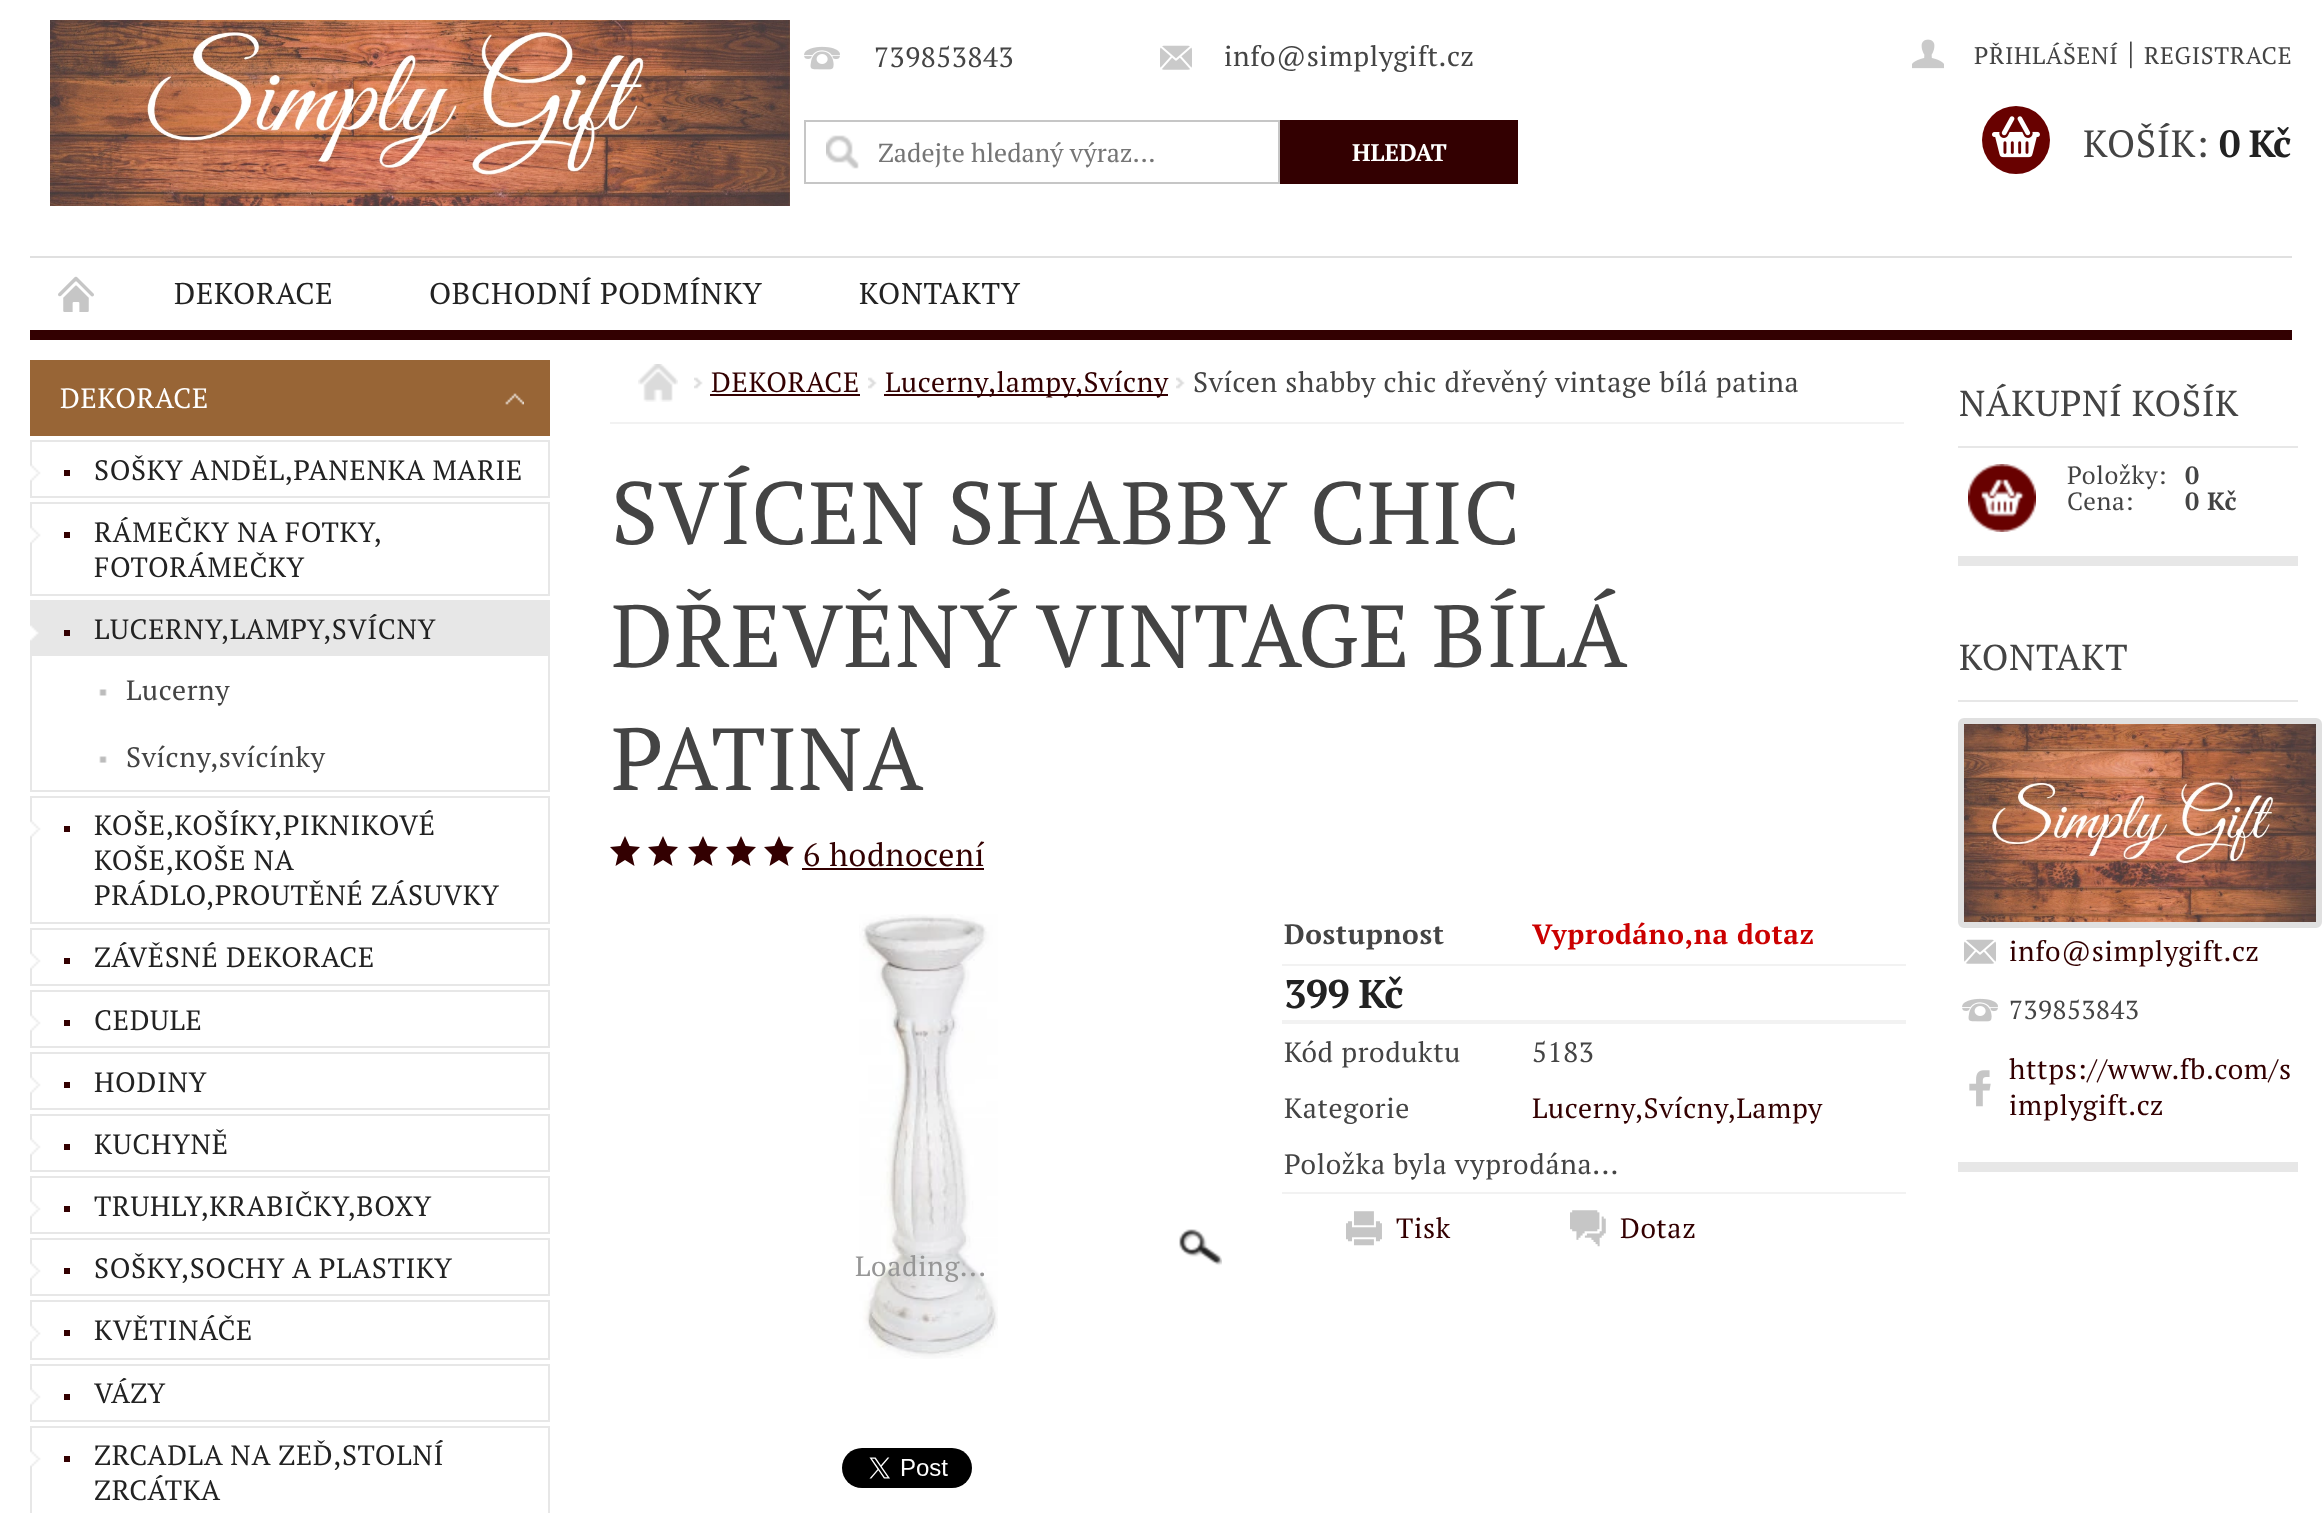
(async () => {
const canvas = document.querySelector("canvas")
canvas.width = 2322
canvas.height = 1513
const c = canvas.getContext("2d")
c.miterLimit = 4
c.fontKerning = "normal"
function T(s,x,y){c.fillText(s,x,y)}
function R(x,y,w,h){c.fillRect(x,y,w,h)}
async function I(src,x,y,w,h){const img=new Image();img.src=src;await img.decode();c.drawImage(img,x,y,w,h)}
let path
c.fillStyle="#fff"
R(0,0,2322,1513)
c.fillStyle="#330001"
R(30,330,2262,10)
await I("1.png",50,20,740,186)
await I("2.png",804,46,36,24)
c.letterSpacing="0.65px"
c.font="28px PT Serif"
c.fillStyle="#444"
T("739853843",874,67)
await I("3.png",1160,45,32,25)
T("info@simplygift.cz",1224,66)
await I("4.png",826,135,33,34)
c.strokeStyle="#c6c6c6"
c.lineWidth=2
c.strokeRect(805,121,474,62)
c.letterSpacing="0px"
c.font="26px PT Serif"
c.fillStyle="#757575"
T("Zadejte hledaný výraz...",878,162)
c.fillStyle="#330001"
R(1280,120,238,64)
c.font="bold 24px PT Serif"
c.fillStyle="#fff"
T("HLEDAT",1352,161)
await I("5.png",1912,39,32,30)
c.letterSpacing="0.65px"
c.font="24px PT Serif"
c.fillStyle="#444"
T("PŘIHLÁŠENÍ",1974,64)
c.font="32px PT Serif"
T("|",2127,64)
c.font="24px PT Serif"
T("REGISTRACE",2144,64)
c.fillStyle="#680100"
c.beginPath()
c.arc(2016,140,34,0,7)
c.fill()
await I("6.png",1992,116,48,42)
c.font="38px PT Serif"
c.fillStyle="#444"
T("KOŠÍK:",2083,157)
c.letterSpacing="-1px"
c.font="bold 38px PT Serif"
c.fillStyle="#222"
T("0 Kč",2219,157)
c.fillStyle="#e0e0e0"
R(30,256,2262,2)
await I("7.png",58,276,36,36)
c.letterSpacing="0.65px"
c.font="30px PT Serif"
c.fillStyle="#222"
T("DEKORACE",174,304)
T("OBCHODNÍ PODMÍNKY",429,304)
T("KONTAKTY",859,304)
c.fillStyle="#986536"
R(30,360,520,76)
await I("8.png",505,393,19,12)
c.font="28px PT Serif"
c.fillStyle="#fff"
T("DEKORACE",60,408)
c.strokeStyle="#e7e7e7"
c.strokeRect(31,441,518,56)
await I("9.png",30,464,11,18)
c.fillStyle="#330001"
R(64,470,6,6)
c.fillStyle="#222"
T("SOŠKY ANDĚL,PANENKA MARIE",94,480)
c.strokeRect(31,503,518,92)
await I("10.png",30,526,11,18)
c.fillStyle="#330001"
R(64,532,6,6)
c.fillStyle="#222"
T("RÁMEČKY NA FOTKY,",94,542)
T("FOTORÁMEČKY",94,577)
c.strokeRect(31,601,518,190)
c.fillStyle="#e7e7e7"
R(32,602,516,54)
await I("11.png",30,625,9,16)
c.fillStyle="#330001"
R(64,630,6,6)
c.fillStyle="#222"
T("LUCERNY,LAMPY,SVÍCNY",94,639)
await I("12.png",99,689,8,7)
c.fillStyle="#444"
T("Lucerny",126,700)
await I("13.png",99,756,8,7)
T("Svícny,svícínky",126,767)
c.strokeRect(31,797,518,126)
await I("9.png",30,820,11,18)
c.fillStyle="#330001"
R(64,826,6,6)
c.fillStyle="#222"
T("KOŠE,KOŠÍKY,PIKNIKOVÉ",94,835)
T("KOŠE,KOŠE NA",94,870)
T("PRÁDLO,PROUTĚNÉ ZÁSUVKY",94,905)
c.strokeRect(31,929,518,56)
await I("9.png",30,952,11,18)
c.fillStyle="#330001"
R(64,958,6,6)
c.fillStyle="#222"
T("ZÁVĚSNÉ DEKORACE",94,967)
c.strokeRect(31,991,518,56)
await I("9.png",30,1014,11,18)
c.fillStyle="#330001"
R(64,1020,6,6)
c.fillStyle="#222"
T("CEDULE",94,1030)
c.strokeRect(31,1053,518,56)
await I("9.png",30,1076,11,18)
c.fillStyle="#330001"
R(64,1082,6,6)
c.fillStyle="#222"
T("HODINY",94,1092)
c.strokeRect(31,1115,518,56)
await I("9.png",30,1138,11,18)
c.fillStyle="#330001"
R(64,1144,6,6)
c.fillStyle="#222"
T("KUCHYNĚ",94,1154)
c.strokeRect(31,1177,518,56)
await I("9.png",30,1200,11,18)
c.fillStyle="#330001"
R(64,1206,6,6)
c.fillStyle="#222"
T("TRUHLY,KRABIČKY,BOXY",94,1216)
c.strokeRect(31,1239,518,56)
await I("9.png",30,1262,11,18)
c.fillStyle="#330001"
R(64,1268,6,6)
c.fillStyle="#222"
T("SOŠKY,SOCHY A PLASTIKY",94,1278)
c.strokeRect(31,1301,518,58)
await I("14.png",30,1324,11,19)
c.fillStyle="#330001"
R(64,1330,6,6)
c.fillStyle="#222"
T("KVĚTINÁČE",94,1340)
c.strokeRect(31,1365,518,56)
await I("9.png",30,1388,11,18)
c.fillStyle="#330001"
R(64,1394,6,6)
c.fillStyle="#222"
T("VÁZY",94,1403)
c.strokeRect(31,1427,518,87)
await I("15.png",30,1450,11,17)
c.fillStyle="#330001"
R(64,1456,6,6)
c.fillStyle="#222"
T("ZRCADLA NA ZEĎ,STOLNÍ",94,1465)
T("ZRCÁTKA",94,1500)
c.fillStyle="#f2f2f2"
R(610,422,1294,2)
await I("16.png",638,364,40,38)
await I("17.png",694,377,9,12)
c.fillStyle="#330001"
T("DEKORACE",711,392)
R(710,394,150,2)
await I("17.png",868,377,9,12)
R(884,394,284,2)
T("Lucerny,lampy,Svícny",885,392)
await I("17.png",1176,377,9,12)
c.fillStyle="#444"
T("Svícen shabby chic dřevěný vintage bílá patina",1193,392)
c.font="88px PT Serif"
T("SVÍCEN SHABBY CHIC",611,544)
c.wordSpacing="-1px"
T("DŘEVĚNÝ VINTAGE BÍLÁ",611,667)
c.wordSpacing="0px"
T("PATINA",611,790)
c.fillStyle="#330001"
path = new Path2D("M625 836l-4.5 10l-10.5 1l8 8l-2.5 11l9.5-6l9.5 6l-2.5-11l8-8l-10.5-1z")
c.fill(path)
path = new Path2D("M663 836l-4.5 10l-10.5 1l8 8l-2.5 11l9.5-6l9.5 6l-2.5-11l8-8l-10.5-1z")
c.fill(path)
path = new Path2D("M703 836l-4.5 10l-10.5 1l8 8l-2.5 11l9.5-6l9.5 6l-2.5-11l8-8l-10.5-1z")
c.fill(path)
path = new Path2D("M741 836l-4.5 10l-10.5 1l8 8l-2.5 11l9.5-6l9.5 6l-2.5-11l8-8l-10.5-1z")
c.fill(path)
path = new Path2D("M779 836l-4.5 10l-10.5 1l8 8l-2.5 11l9.5-6l9.5 6l-2.5-11l8-8l-10.5-1z")
c.fill(path)
c.font="32px PT Serif"
T("6 hodnocení",803,866)
R(802,868,182,2)
c.fillStyle="#f2f2f2"
R(1282,964,624,2)
c.font="bold 28px PT Serif"
c.fillStyle="#444"
T("Dostupnost",1284,944)
c.fillStyle="#cb0000"
T("Vyprodáno,na dotaz",1532,944)
c.fillStyle="#f2f2f2"
R(1282,1020,624,4)
c.letterSpacing="-1px"
c.font="bold 40px PT Serif"
c.fillStyle="#222"
T("399 Kč",1284,1008)
c.letterSpacing="0.65px"
c.font="28px PT Serif"
c.fillStyle="#444"
T("Kód produktu",1284,1062)
T("5183",1532,1062)
T("Kategorie",1284,1118)
c.fillStyle="#330001"
T("Lucerny,Svícny,Lampy",1532,1118)
c.fillStyle="#f2f2f2"
R(1282,1192,624,2)
c.fillStyle="#444"
T("Položka byla vyprodána...",1284,1174)
await I("18.png",1346,1211,36,35)
c.fillStyle="#330001"
T("Tisk",1396,1238)
await I("19.png",1570,1210,36,37)
T("Dotaz",1620,1238)
await I("20.png",859,914,139,445)
c.fillStyle="#969696"
T("Loading...",855,1276)
await I("21.png",1179,1229,43,37)
await I("22.png",842,1448,130,40)
c.fillStyle="#e7e7e7"
R(1958,556,340,10)
R(1958,446,340,2)
c.font="36px PT Serif"
c.fillStyle="#444"
T("NÁKUPNÍ KOŠÍK",1959,416)
c.fillStyle="#680100"
R(1968,464,68,68)
await I("23.png",1968,464,68,68)
c.font="25px PT Serif"
c.fillStyle="#444"
T("Položky:",2067,484)
T("Cena:",2067,510)
c.font="bold 25px PT Serif"
T("0",2185,484)
T("0 Kč",2185,510)
c.fillStyle="#e7e7e7"
R(1958,1162,340,10)
R(1958,700,340,2)
c.font="36px PT Serif"
c.fillStyle="#444"
T("KONTAKT",1959,670)
c.beginPath()
c.roundRect(1961,721,358,204,3)
c.strokeStyle="#e0e0e0"
c.lineWidth=6
c.stroke()
await I("24.png",1964,724,352,198)
await I("25.png",1964,939,32,25)
c.font="28px PT Serif"
c.fillStyle="#330001"
T("info@simplygift.cz",2009,961)
await I("26.png",1962,998,36,24)
c.font="26px PT Serif"
c.fillStyle="#444"
T("739853843",2009,1019)
await I("27.png",1969,1070,22,37)
c.font="28px PT Serif"
c.fillStyle="#330001"
T("https://www.fb.com/s",2009,1079)
T("implygift.cz",2009,1115)
})()
